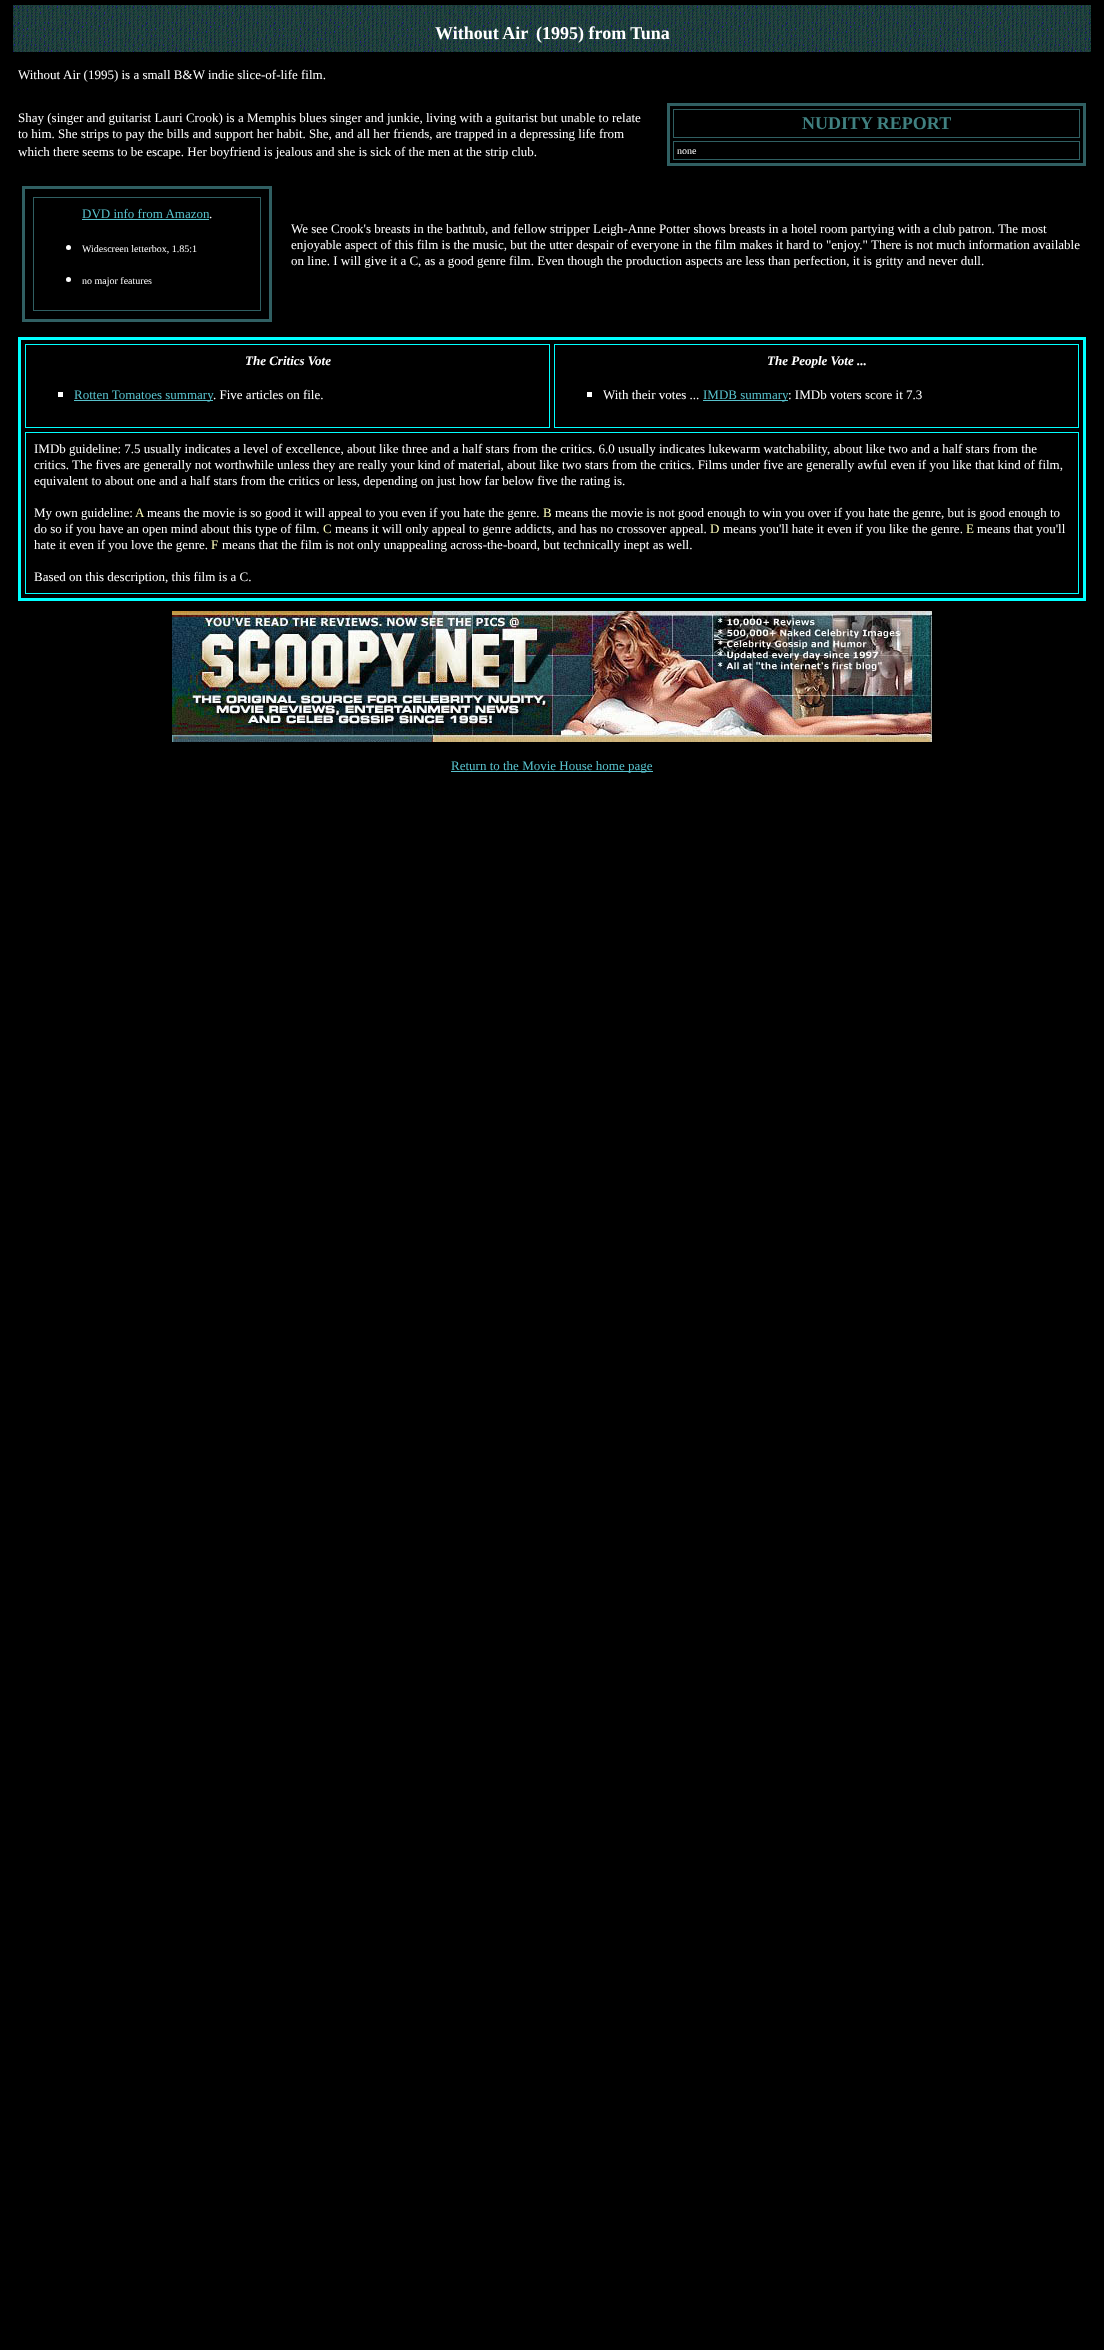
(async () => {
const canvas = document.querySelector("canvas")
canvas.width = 1104
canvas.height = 2350
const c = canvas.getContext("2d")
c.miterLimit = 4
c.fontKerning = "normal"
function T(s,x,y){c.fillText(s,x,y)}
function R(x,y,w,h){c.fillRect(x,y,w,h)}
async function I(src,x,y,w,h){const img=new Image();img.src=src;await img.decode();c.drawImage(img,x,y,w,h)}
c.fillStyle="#000"
R(0,0,1104,2350)
await I("1.png",13,5,1078,47)
c.font="bold 18px Liberation Serif"
c.fillStyle="#fff"
T("Without Air",435,39)
T("(1995) from Tuna",536,39)
c.font="13px Liberation Serif"
T("Without",18,79)
T("Air (1995) is a small B&W indie slice-of-life film.",63,79)
T("Shay (singer and guitarist Lauri Crook) is a Memphis blues singer and junkie, living with a guitarist but unable to relate",18,122)
T("to him. She strips to pay the bills and support her habit. She, and all her friends, are trapped in a depressing life from",18,138)
T("which there seems to be escape. Her boyfriend is jealous and she is sick of the men at the strip club.",18,156)
c.strokeStyle="#305f62"
c.lineWidth=3
c.strokeRect(668.5,104.5,416,60)
c.lineWidth=1
c.strokeRect(673.5,109.5,406,28)
c.font="bold 18px Liberation Serif"
c.fillStyle="#408080"
T("NUDITY REPORT",802,129)
c.strokeRect(673.5,141.5,406,18)
c.font="10px Liberation Serif"
c.fillStyle="#fff"
T("none",677,154)
c.lineWidth=3
c.strokeRect(23.5,187.5,247,133)
c.lineWidth=1
c.strokeRect(33.5,197.5,227,113)
c.font="13px Liberation Serif"
c.fillStyle="#58c2cd"
T("DVD info from Amazon",82,218)
R(82,219,127,1)
c.fillStyle="#fff"
T(".",209,218)
c.beginPath()
c.arc(68.5,247.5,2.5,0,7)
c.fill()
c.font="10px Liberation Serif"
T("Widescreen letterbox, 1.85:1",82,252)
c.beginPath()
c.arc(68.5,279.5,2.5,0,7)
c.fill()
T("no major features",82,284)
c.font="13px Liberation Serif"
T("We see Crook's breasts in the bathtub, and fellow stripper Leigh-Anne Potter shows breasts in a hotel room partying with a club patron. The most",291,233)
T("enjoyable aspect of this film is the music, but the utter despair of everyone in the film makes it hard to \"enjoy.\" There is not much information available",291,249)
T("on line. I will give it a C, as a good genre film. Even though the production aspects are less than perfection, it is gritty and never dull.",291,265)
c.strokeStyle="#0ff"
c.lineWidth=3
c.strokeRect(19.5,338.5,1065,261)
c.lineWidth=1
c.strokeRect(25.5,344.5,524,83)
c.font="italic bold 13px Liberation Serif"
T("The Critics Vote",245,365)
R(58,392,5,5)
c.fillStyle="#58c2cd"
R(74,400,139,1)
c.font="13px Liberation Serif"
T("Rotten Tomatoes summary",74,399)
c.fillStyle="#fff"
T(". Five articles on file.",213,399)
c.strokeRect(554.5,344.5,524,83)
c.font="italic bold 13px Liberation Serif"
T("The People Vote ...",767,365)
R(587,392,5,5)
c.font="13px Liberation Serif"
T("With their votes ...",603,399)
c.fillStyle="#58c2cd"
R(703,400,85,1)
T("IMDB summary",703,399)
c.fillStyle="#fff"
T(": IMDb voters score it 7.3",788,399)
c.strokeRect(25.5,432.5,1053,161)
T("IMDb guideline: 7.5 usually indicates a level of excellence, about like three and a half stars from the critics. 6.0 usually indicates lukewarm watchability, about like two and a half stars from the",34,453)
T("critics. The fives are generally not worthwhile unless they are really your kind of material, about like two stars from the critics. Films under five are generally awful even if you like that kind of film,",34,469)
T("equivalent to about one and a half stars from the critics or less, depending on just how far below five the rating is.",34,485)
T("My own guideline:",34,517)
c.fillStyle="#ffb"
T("A",135,517)
c.fillStyle="#fff"
T("means the movie is so good it will appeal to you even if you hate the genre.",147,517)
c.fillStyle="#ffb"
T("B",543,517)
c.fillStyle="#fff"
T("means the movie is not good enough to win you over if you hate the genre, but is good enough to",555,517)
T("do so if you have an open mind about this type of film.",34,533)
c.fillStyle="#ffb"
T("C",323,533)
c.fillStyle="#fff"
T("means it will only appeal to genre addicts, and has no crossover appeal.",335,533)
c.fillStyle="#ffb"
T("D",710,533)
c.fillStyle="#fff"
T("means you'll hate it even if you like the genre.",723,533)
c.fillStyle="#ffb"
T("E",966,533)
c.fillStyle="#fff"
T("means that you'll",977,533)
T("hate it even if you love the genre.",34,549)
c.fillStyle="#ffb"
T("F",211,549)
c.fillStyle="#fff"
T("means that the film is not only unappealing across-the-board, but technically inept as well.",222,549)
T("Based on this description, this film is a C.",34,581)
await I("2.png",172,611,760,131)
c.fillStyle="#58c2cd"
R(451,771,202,1)
T("Return to the Movie House home page",451,770)
})()
